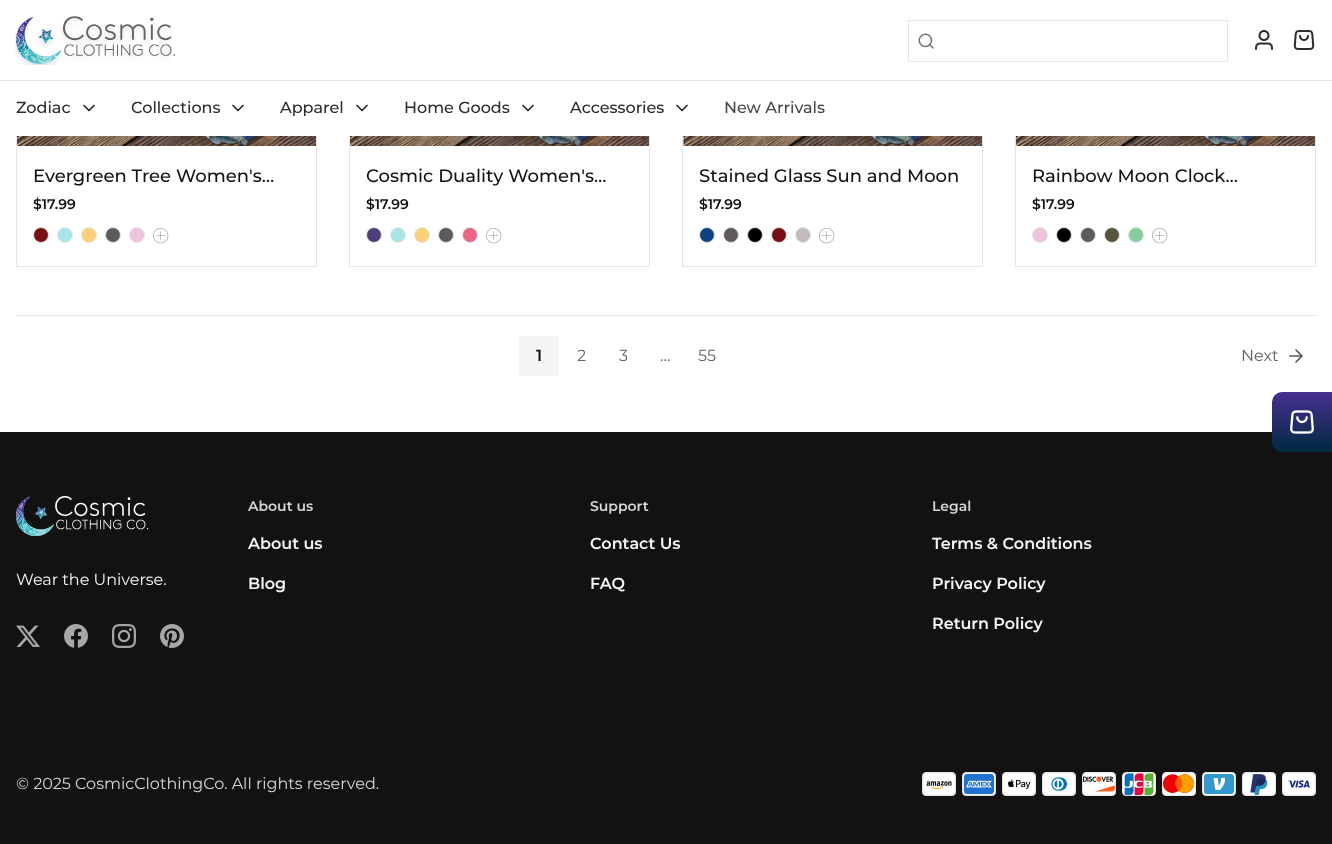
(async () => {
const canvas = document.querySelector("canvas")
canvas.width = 1332
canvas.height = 844
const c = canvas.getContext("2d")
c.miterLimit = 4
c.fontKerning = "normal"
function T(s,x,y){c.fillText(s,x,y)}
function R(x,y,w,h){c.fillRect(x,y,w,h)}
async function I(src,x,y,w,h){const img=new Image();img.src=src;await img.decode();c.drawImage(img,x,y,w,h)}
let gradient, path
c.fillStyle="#fff"
R(0,0,1332,844)
c.strokeStyle="#e5e5e5"
c.strokeRect(16.5,-.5,300,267)
c.strokeRect(349.5,-.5,300,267)
c.strokeRect(682.5,-.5,300,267)
c.strokeRect(1015.5,-.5,300,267)
R(16,0,1300,136)
await I("1.png",15,16,160,49)
c.strokeRect(908.5,20.5,319,41)
await I("2.png",918,33,16,16)
await I("3.png",1255,30,18,20)
await I("4.png",1293,30,22,20)
c.fillStyle="#e5e5e5"
R(0,80,1332,1)
c.font="500 16px Montserrat"
c.fillStyle="#2b2b2b"
T("Zodiac",16,113)
path = new Path2D("M84 105.5l5 5l5-5")
c.strokeStyle="#2b2b2b"
c.lineWidth=1.7
c.lineCap="round"
c.lineJoin="round"
c.stroke(path)
T("Collections",131,113)
path = new Path2D("M233 105.5l5 5l5-5")
c.stroke(path)
T("Apparel",280,113)
path = new Path2D("M357 105.5l5 5l5-5")
c.stroke(path)
T("Home Goods",404,113)
path = new Path2D("M523 105.5l5 5l5-5")
c.stroke(path)
T("Accessories",570,113)
path = new Path2D("M677 105.5l5 5l5-5")
c.stroke(path)
c.fillStyle="#454545"
T("New Arrivals",724,113)
c.fillStyle="#121212"
R(0,432,1332,412)
gradient = c.createLinearGradient(1302,392,1302,452)
gradient.addColorStop(0,"#472f90")
gradient.addColorStop(1,"#002a41")
c.fillStyle = gradient
c.beginPath()
c.roundRect(1272,392,60,60,[10,0,0,10])
c.fill()
await I("5.png",1290,410,24,24)
await I("6.png",17,136,299,10)
c.font="500 18px Montserrat"
c.fillStyle="#121212"
T("Evergreen Tree Women's…",33,182)
c.font="600 14px Montserrat"
T("$17.99",33,209)
c.fillStyle="#781016"
c.beginPath()
c.arc(41,235,7.5,0,7)
c.fill()
c.strokeStyle="#e5e5e5"
c.lineWidth=1
c.stroke()
c.fillStyle="#a8e5e7"
c.beginPath()
c.arc(65,235,7.5,0,7)
c.fill()
c.stroke()
c.fillStyle="#fccf78"
c.beginPath()
c.arc(89,235,7.5,0,7)
c.fill()
c.stroke()
c.fillStyle="#5f5b5a"
c.beginPath()
c.arc(113,235,7.5,0,7)
c.fill()
c.stroke()
c.fillStyle="#eec3db"
c.beginPath()
c.arc(137,235,7.5,0,7)
c.fill()
c.stroke()
await I("7.png",153,228,16,16)
await I("8.png",350,136,299,10)
c.font="500 18px Montserrat"
c.fillStyle="#121212"
T("Cosmic Duality Women's…",366,182)
c.font="600 14px Montserrat"
T("$17.99",366,209)
c.fillStyle="#513f77"
c.beginPath()
c.arc(374,235,7.5,0,7)
c.fill()
c.stroke()
c.fillStyle="#a8e5e7"
c.beginPath()
c.arc(398,235,7.5,0,7)
c.fill()
c.stroke()
c.fillStyle="#fccf78"
c.beginPath()
c.arc(422,235,7.5,0,7)
c.fill()
c.stroke()
c.fillStyle="#5f5b5a"
c.beginPath()
c.arc(446,235,7.5,0,7)
c.fill()
c.stroke()
c.fillStyle="#ed6484"
c.beginPath()
c.arc(470,235,7.5,0,7)
c.fill()
c.stroke()
await I("7.png",486,228,16,16)
await I("9.png",683,136,299,10)
c.font="500 18px Montserrat"
c.fillStyle="#121212"
T("Stained Glass Sun and Moon",699,182)
c.font="600 14px Montserrat"
T("$17.99",699,209)
c.fillStyle="#124181"
c.beginPath()
c.arc(707,235,7.5,0,7)
c.fill()
c.stroke()
c.fillStyle="#5f5b5a"
c.beginPath()
c.arc(731,235,7.5,0,7)
c.fill()
c.stroke()
c.fillStyle="#000"
c.beginPath()
c.arc(755,235,7.5,0,7)
c.fill()
c.stroke()
c.fillStyle="#781016"
c.beginPath()
c.arc(779,235,7.5,0,7)
c.fill()
c.stroke()
c.fillStyle="#c3bab9"
c.beginPath()
c.arc(803,235,7.5,0,7)
c.fill()
c.stroke()
await I("7.png",819,228,16,16)
await I("10.png",1016,136,299,10)
c.font="500 18px Montserrat"
c.fillStyle="#121212"
T("Rainbow Moon Clock…",1032,182)
c.font="600 14px Montserrat"
T("$17.99",1032,209)
c.fillStyle="#eec3db"
c.beginPath()
c.arc(1040,235,7.5,0,7)
c.fill()
c.stroke()
c.fillStyle="#000"
c.beginPath()
c.arc(1064,235,7.5,0,7)
c.fill()
c.stroke()
c.fillStyle="#5f5b5a"
c.beginPath()
c.arc(1088,235,7.5,0,7)
c.fill()
c.stroke()
c.fillStyle="#59543c"
c.beginPath()
c.arc(1112,235,7.5,0,7)
c.fill()
c.stroke()
c.fillStyle="#89cba0"
c.beginPath()
c.arc(1136,235,7.5,0,7)
c.fill()
c.stroke()
await I("7.png",1152,228,16,16)
c.fillStyle="#e5e5e5"
R(16,315,1300,1)
c.fillStyle="#f5f5f5"
R(519,336,40,40)
c.font="600 16px Montserrat"
c.fillStyle="#121212"
T("1",536,361)
c.font="100 16px Montserrat"
c.fillStyle="#616264"
T("2",577,361)
T("3",619,361)
T("…",660,361)
T("55",698,361)
T("Next",1241,361)
path = new Path2D("M1290 356h12m0 0l-6-6m6 6l-6 6")
c.strokeStyle="#585858"
c.lineWidth=1.7
c.stroke(path)
await I("11.png",16,496,133,40)
c.fillStyle="#f5f5f5"
T("Wear the Universe.",16,585)
await I("12.png",16,625,24,22)
await I("13.png",64,624,24,24)
await I("14.png",112,624,24,24)
await I("15.png",160,624,24,24)
c.font="600 14px Montserrat"
c.fillStyle="#d6d6d6"
T("About us",248,511)
c.font="600 16px Montserrat"
c.fillStyle="#f5f5f5"
T("About us",248,549)
T("Blog",248,589)
c.font="600 14px Montserrat"
c.fillStyle="#d6d6d6"
T("Support",590,511)
c.font="600 16px Montserrat"
c.fillStyle="#f5f5f5"
T("Contact Us",590,549)
T("FAQ",590,589)
c.font="600 14px Montserrat"
c.fillStyle="#d6d6d6"
T("Legal",932,511)
c.font="600 16px Montserrat"
c.fillStyle="#f5f5f5"
T("Terms & Conditions",932,549)
T("Privacy Policy",932,589)
T("Return Policy",932,629)
c.font="100 16px Montserrat"
c.fillStyle="#d6d6d6"
T("© 2025 CosmicClothingCo. All rights reserved.",16,789)
c.fillStyle="#fff"
c.beginPath()
c.roundRect(922.5,772.5,33,23,3.5)
c.fill()
c.strokeStyle="#e5e5e5"
c.lineWidth=1
c.lineJoin="miter"
c.stroke()
await I("16.png",923,773,32,22)
c.beginPath()
c.roundRect(962.5,772.5,33,23,3.5)
c.fill()
c.stroke()
await I("17.png",963,773,32,22)
c.beginPath()
c.roundRect(1002.5,772.5,33,23,3.5)
c.fill()
c.stroke()
await I("18.png",1003,773,32,22)
c.beginPath()
c.roundRect(1042.5,772.5,33,23,3.5)
c.fill()
c.stroke()
await I("19.png",1043,773,32,22)
c.beginPath()
c.roundRect(1082.5,772.5,33,23,3.5)
c.fill()
c.stroke()
await I("20.png",1083,776,32,16)
c.beginPath()
c.roundRect(1122.5,772.5,33,23,3.5)
c.fill()
c.stroke()
await I("21.png",1124,773,30,22)
c.beginPath()
c.roundRect(1162.5,772.5,33,23,3.5)
c.fill()
c.stroke()
await I("22.png",1163,774,32,19)
c.beginPath()
c.roundRect(1202.5,772.5,33,23,3.5)
c.fill()
c.stroke()
await I("23.png",1203,773,32,22)
c.beginPath()
c.roundRect(1242.5,772.5,33,23,3.5)
c.fill()
c.stroke()
await I("24.png",1250,774,18,21)
c.beginPath()
c.roundRect(1282.5,772.5,33,23,3.5)
c.fill()
c.stroke()
await I("25.png",1283,773,32,22)
})()
